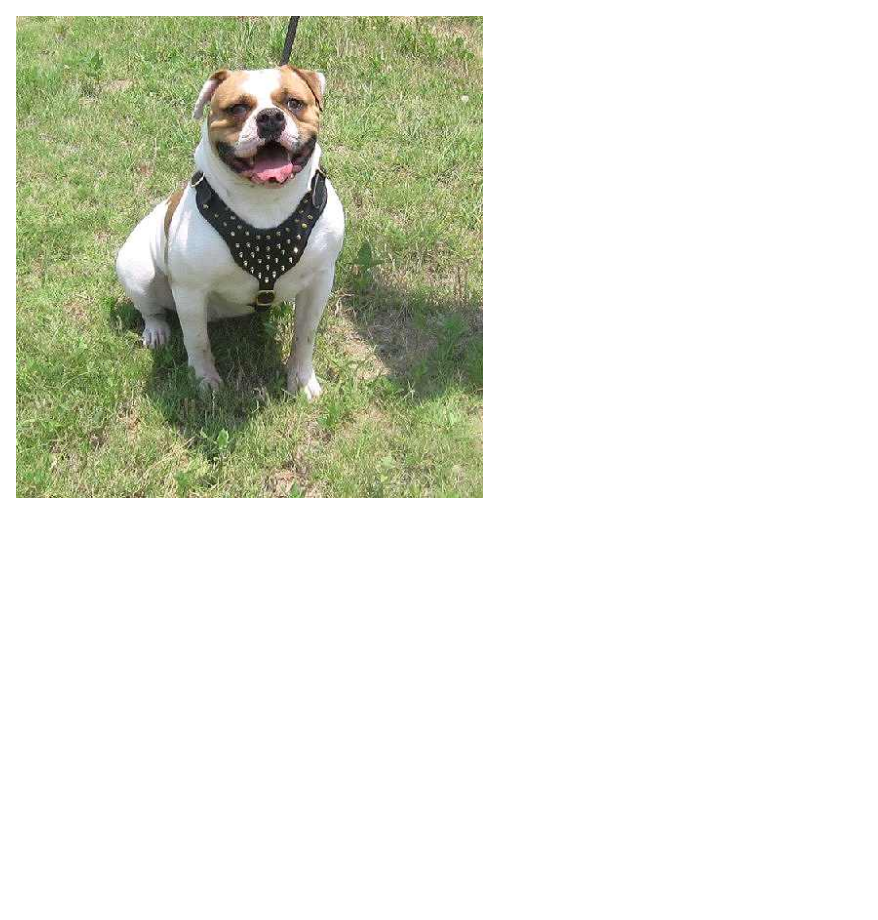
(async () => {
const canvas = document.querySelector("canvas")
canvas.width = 878
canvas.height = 920
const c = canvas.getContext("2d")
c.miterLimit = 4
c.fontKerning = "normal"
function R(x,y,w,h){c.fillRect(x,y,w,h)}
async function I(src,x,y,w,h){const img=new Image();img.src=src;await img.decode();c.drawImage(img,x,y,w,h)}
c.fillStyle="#fff"
R(0,0,878,920)
await I("1.png",16,16,467,482)
})()
